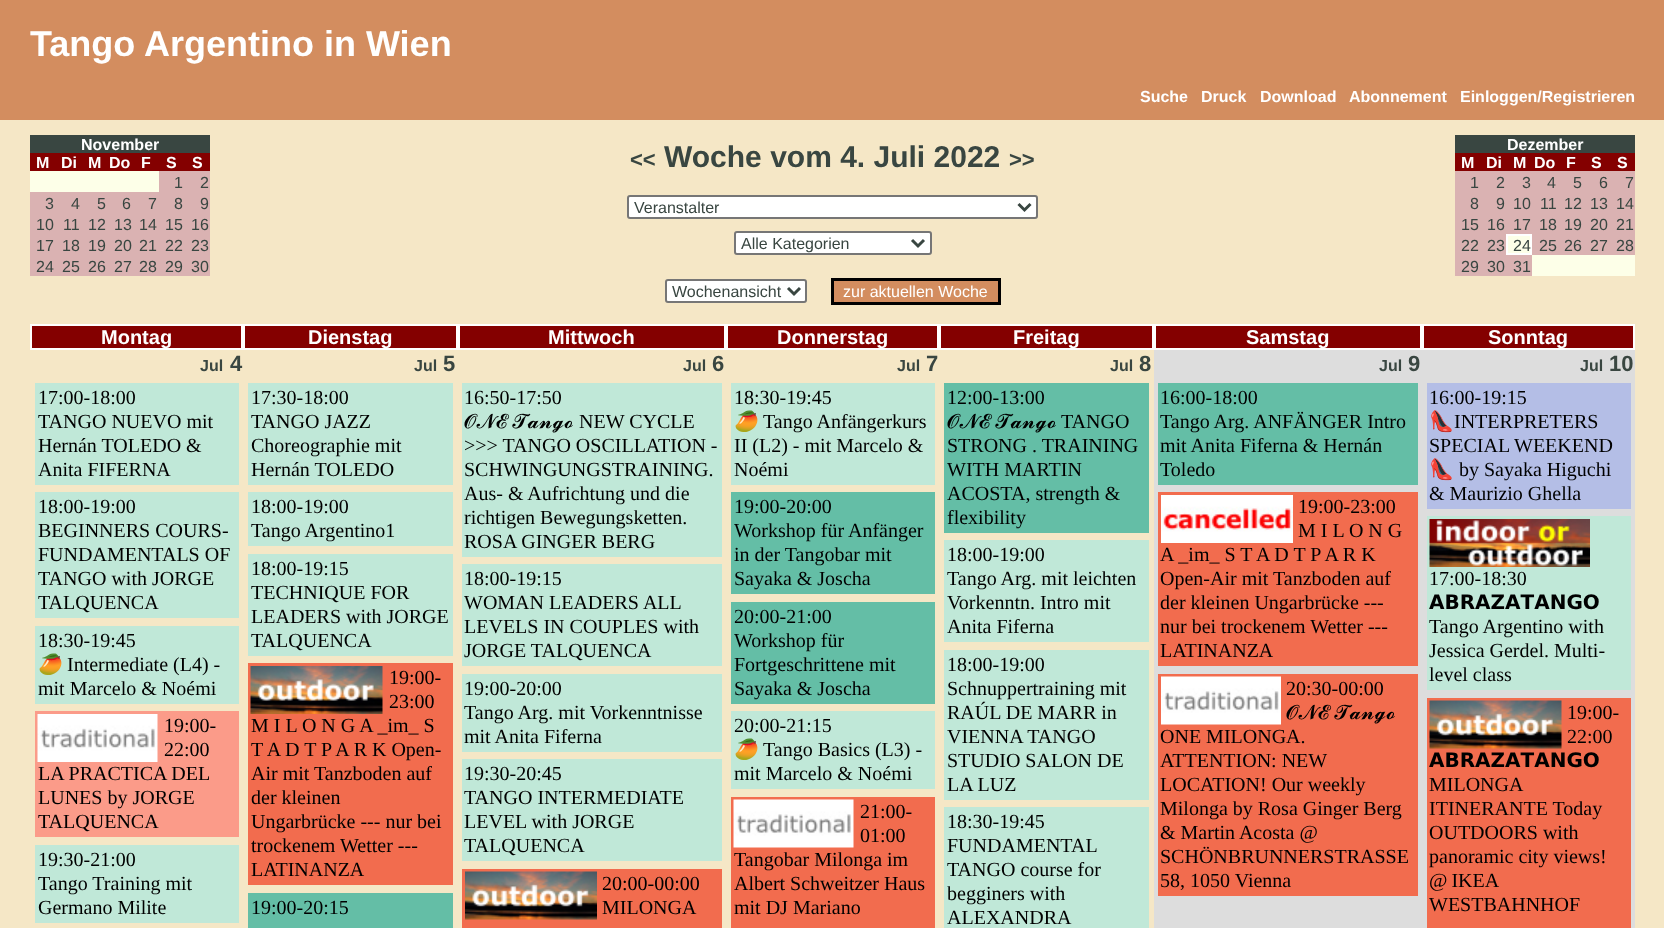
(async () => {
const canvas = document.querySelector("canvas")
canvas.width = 1664
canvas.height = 928
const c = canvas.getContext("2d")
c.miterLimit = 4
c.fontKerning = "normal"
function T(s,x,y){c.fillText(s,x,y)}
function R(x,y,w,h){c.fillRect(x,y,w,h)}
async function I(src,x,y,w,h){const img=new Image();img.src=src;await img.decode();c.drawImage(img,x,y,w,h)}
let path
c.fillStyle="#f5e7c6"
R(0,0,1664,928)
c.fillStyle="#d38d5f"
R(0,0,1664,120)
c.font="bold 36px Liberation Sans"
c.fillStyle="#fff"
T("Tango Argentino in Wien",30,56)
c.font="bold 16px Liberation Sans"
T("Suche",1140,102)
T("Druck",1201,102)
T("Download",1260,102)
T("Abonnement",1349,102)
T("Einloggen/Registrieren",1460,102)
c.fillStyle="#394641"
R(30,135,180,18)
c.fillStyle="#fff"
T("November",81,150)
c.fillStyle="#840000"
R(30,153,180,18)
c.fillStyle="#fff"
T("M",36,168)
T("Di",61,168)
T("M",88,168)
T("Do",109,168)
T("F",141,168)
T("S",166,168)
T("S",192,168)
c.fillStyle="#fdffe8"
R(30,171,129,21)
c.fillStyle="#dab2b2"
R(159,171,51,21)
c.font="16px Liberation Sans"
c.fillStyle="#394641"
T("1",174,188)
T("2",200,188)
c.fillStyle="#dab2b2"
R(30,192,180,21)
c.fillStyle="#394641"
T("3",45,209)
T("4",71,209)
T("5",97,209)
T("6",122,209)
T("7",148,209)
T("8",174,209)
T("9",200,209)
c.fillStyle="#dab2b2"
R(30,213,180,21)
c.fillStyle="#394641"
T("10",36,230)
T("11",63,230)
T("12",88,230)
T("13",114,230)
T("14",139,230)
T("15",165,230)
T("16",191,230)
c.fillStyle="#dab2b2"
R(30,234,180,21)
c.fillStyle="#394641"
T("17",36,251)
T("18",62,251)
T("19",88,251)
T("20",114,251)
T("21",139,251)
T("22",165,251)
T("23",191,251)
c.fillStyle="#dab2b2"
R(30,255,180,21)
c.fillStyle="#394641"
T("24",36,272)
T("25",62,272)
T("26",88,272)
T("27",114,272)
T("28",139,272)
T("29",165,272)
T("30",191,272)
c.font="bold 22px Liberation Sans"
T("<<",630,167)
c.font="bold 30px Liberation Sans"
T("Woche vom 4. Juli 2022",664,167)
c.font="bold 22px Liberation Sans"
T(">>",1009,167)
c.fillStyle="#fff"
c.beginPath()
c.roundRect(628,196,409,22,2)
c.fill()
c.strokeStyle="#767676"
c.lineWidth=2
c.stroke()
path = new Path2D("M1018.5 204l6 6l6-6")
c.strokeStyle="#394641"
c.lineWidth=3
c.stroke(path)
c.font="16px Liberation Sans"
c.fillStyle="#394641"
T("Veranstalter",634,213)
c.fillStyle="#fff"
c.beginPath()
c.roundRect(735,232,196,22,2)
c.fill()
c.strokeStyle="#767676"
c.lineWidth=2
c.stroke()
path = new Path2D("M912 240l6 6l6-6")
c.strokeStyle="#394641"
c.lineWidth=3
c.stroke(path)
c.fillStyle="#394641"
T("Alle Kategorien",741,249)
c.fillStyle="#fff"
c.beginPath()
c.roundRect(666,280,140,22,2)
c.fill()
c.strokeStyle="#767676"
c.lineWidth=2
c.stroke()
path = new Path2D("M788 288l6 6l6-6")
c.strokeStyle="#394641"
c.lineWidth=3
c.stroke(path)
c.fillStyle="#394641"
T("Wochenansicht",672,297)
c.fillStyle="#d38d5f"
c.beginPath()
c.rect(832.5,279.5,167,24)
c.fill()
c.strokeStyle="#000"
c.stroke()
c.fillStyle="#fff"
T("zur aktuellen Woche",843,297)
c.fillStyle="#394641"
R(1455,135,180,18)
c.font="bold 16px Liberation Sans"
c.fillStyle="#fff"
T("Dezember",1507,150)
c.fillStyle="#840000"
R(1455,153,180,18)
c.fillStyle="#fff"
T("M",1461,168)
T("Di",1486,168)
T("M",1513,168)
T("Do",1534,168)
T("F",1566,168)
T("S",1591,168)
T("S",1617,168)
c.fillStyle="#dab2b2"
R(1455,171,180,21)
c.font="16px Liberation Sans"
c.fillStyle="#394641"
T("1",1470,188)
T("2",1496,188)
T("3",1522,188)
T("4",1547,188)
T("5",1573,188)
T("6",1599,188)
T("7",1625,188)
c.fillStyle="#dab2b2"
R(1455,192,180,21)
c.fillStyle="#394641"
T("8",1470,209)
T("9",1496,209)
T("10",1513,209)
T("11",1540,209)
T("12",1564,209)
T("13",1590,209)
T("14",1616,209)
c.fillStyle="#dab2b2"
R(1455,213,180,21)
c.fillStyle="#394641"
T("15",1461,230)
T("16",1487,230)
T("17",1513,230)
T("18",1539,230)
T("19",1564,230)
T("20",1590,230)
T("21",1616,230)
c.fillStyle="#dab2b2"
R(1455,234,51,21)
c.fillStyle="#394641"
T("22",1461,251)
T("23",1487,251)
c.fillStyle="#fdffe8"
c.beginPath()
c.rect(1507,235,24,19)
c.fill()
c.strokeStyle="#fff"
c.lineWidth=2
c.stroke()
c.fillStyle="#394641"
T("24",1513,251)
c.fillStyle="#dab2b2"
R(1532,234,103,21)
c.fillStyle="#394641"
T("25",1539,251)
T("26",1564,251)
T("27",1590,251)
T("28",1616,251)
c.fillStyle="#dab2b2"
R(1455,255,77,21)
c.fillStyle="#394641"
T("29",1461,272)
T("30",1487,272)
T("31",1513,272)
c.fillStyle="#fdffe8"
R(1532,255,103,21)
c.fillStyle="#840000"
c.beginPath()
c.rect(31,325,211,24)
c.fill()
c.stroke()
c.font="bold 20px Liberation Sans"
c.fillStyle="#fff"
T("Montag",101,344)
c.fillStyle="#840000"
c.beginPath()
c.rect(244,325,213,24)
c.fill()
c.stroke()
c.fillStyle="#fff"
T("Dienstag",308,344)
c.fillStyle="#840000"
c.beginPath()
c.rect(459,325,266,24)
c.fill()
c.stroke()
c.fillStyle="#fff"
T("Mittwoch",548,344)
c.fillStyle="#840000"
c.beginPath()
c.rect(727,325,211,24)
c.fill()
c.stroke()
c.fillStyle="#fff"
T("Donnerstag",777,344)
c.fillStyle="#840000"
c.beginPath()
c.rect(940,325,213,24)
c.fill()
c.stroke()
c.fillStyle="#fff"
T("Freitag",1013,344)
c.fillStyle="#840000"
c.beginPath()
c.rect(1155,325,266,24)
c.fill()
c.stroke()
c.fillStyle="#fff"
T("Samstag",1246,344)
c.fillStyle="#840000"
c.beginPath()
c.rect(1423,325,211,24)
c.fill()
c.stroke()
c.fillStyle="#fff"
T("Sonntag",1488,344)
c.font="bold 16px Liberation Sans"
c.fillStyle="#394641"
T("Jul",200,371)
c.font="bold 22px Liberation Sans"
T("4",230,371)
c.fillStyle="#c0e8d8"
R(35,383,204,102)
c.font="20px Liberation Serif"
c.fillStyle="#000"
T("17:00-18:00",38,404)
T("TANGO NUEVO mit",38,428)
T("Hernán TOLEDO &",38,452)
T("Anita FIFERNA",38,476)
c.fillStyle="#c0e8d8"
R(35,492,204,126)
c.fillStyle="#000"
T("18:00-19:00",38,513)
T("BEGINNERS COURS-",38,537)
T("FUNDAMENTALS OF",38,561)
T("TANGO with JORGE",38,585)
T("TALQUENCA",38,609)
c.fillStyle="#c0e8d8"
R(35,626,204,78)
c.fillStyle="#000"
T("18:30-19:45",38,647)
c.font="20px Noto Color Emoji"
T("🥭",38,671)
c.font="20px Liberation Serif"
T("Intermediate (L4) -",67,671)
T("mit Marcelo & Noémi",38,695)
c.fillStyle="#fb9b89"
R(35,711,204,126)
await I("1.png",37,714,121,48)
c.fillStyle="#000"
T("19:00-",164,732)
T("22:00",164,756)
T("LA PRACTICA DEL",38,780)
T("LUNES by JORGE",38,804)
T("TALQUENCA",38,828)
c.fillStyle="#c0e8d8"
R(35,845,204,78)
c.fillStyle="#000"
T("19:30-21:00",38,866)
T("Tango Training mit",38,890)
T("Germano Milite",38,914)
c.font="bold 16px Liberation Sans"
c.fillStyle="#394641"
T("Jul",414,371)
c.font="bold 22px Liberation Sans"
T("5",443,371)
c.fillStyle="#c0e8d8"
R(248,383,205,102)
c.font="20px Liberation Serif"
c.fillStyle="#000"
T("17:30-18:00",251,404)
T("TANGO JAZZ",251,428)
T("Choreographie mit",251,452)
T("Hernán TOLEDO",251,476)
c.fillStyle="#c0e8d8"
R(248,492,205,54)
c.fillStyle="#000"
T("18:00-19:00",251,513)
T("Tango Argentino1",251,537)
c.fillStyle="#c0e8d8"
R(248,554,205,102)
c.fillStyle="#000"
T("18:00-19:15",251,575)
T("TECHNIQUE FOR",251,599)
T("LEADERS with JORGE",251,623)
T("TALQUENCA",251,647)
c.fillStyle="#f26c4e"
R(248,663,205,222)
await I("2.png",250,666,133,48)
c.fillStyle="#000"
T("19:00-",389,684)
T("23:00",389,708)
T("M I L O N G A _im_ S",251,732)
T("T A D T P A R K Open-",251,756)
T("Air mit Tanzboden auf",251,780)
T("der kleinen",251,804)
T("Ungarbrücke --- nur bei",251,828)
T("trockenem Wetter ---",251,852)
T("LATINANZA",251,876)
c.fillStyle="#64bea6"
R(248,893,205,35)
c.fillStyle="#000"
T("19:00-20:15",251,914)
c.font="bold 16px Liberation Sans"
c.fillStyle="#394641"
T("Jul",683,371)
c.font="bold 22px Liberation Sans"
T("6",712,371)
c.fillStyle="#c0e8d8"
R(462,383,260,174)
c.font="20px Liberation Serif"
c.fillStyle="#000"
T("16:50-17:50",464,404)
c.font="20px FreeSerif"
T("𝓞𝓝𝓔 𝓣𝓪𝓷𝓰𝓸",464,428)
c.font="20px Liberation Serif"
T("NEW CYCLE",579,428)
T(">>> TANGO OSCILLATION -",464,452)
T("SCHWINGUNGSTRAINING.",464,476)
T("Aus- & Aufrichtung und die",464,500)
T("richtigen Bewegungsketten.",464,524)
T("ROSA GINGER BERG",464,548)
c.fillStyle="#c0e8d8"
R(462,564,260,102)
c.fillStyle="#000"
T("18:00-19:15",464,585)
T("WOMAN LEADERS ALL",464,609)
T("LEVELS IN COUPLES with",464,633)
T("JORGE TALQUENCA",464,657)
c.fillStyle="#c0e8d8"
R(462,674,260,78)
c.fillStyle="#000"
T("19:00-20:00",464,695)
T("Tango Arg. mit Vorkenntnisse",464,719)
T("mit Anita Fiferna",464,743)
c.fillStyle="#c0e8d8"
R(462,759,260,102)
c.fillStyle="#000"
T("19:30-20:45",464,780)
T("TANGO INTERMEDIATE",464,804)
T("LEVEL with JORGE",464,828)
T("TALQUENCA",464,852)
c.fillStyle="#f26c4e"
R(462,869,260,59)
await I("3.png",465,871,132,49)
c.fillStyle="#000"
T("20:00-00:00",602,890)
T("MILONGA",602,914)
c.font="bold 16px Liberation Sans"
c.fillStyle="#394641"
T("Jul",897,371)
c.font="bold 22px Liberation Sans"
T("7",926,371)
c.fillStyle="#c0e8d8"
R(731,383,204,102)
c.font="20px Liberation Serif"
c.fillStyle="#000"
T("18:30-19:45",734,404)
c.font="20px Noto Color Emoji"
T("🥭",734,428)
c.font="20px Liberation Serif"
T("Tango Anfängerkurs",763,428)
T("II (L2) - mit Marcelo &",734,452)
T("Noémi",734,476)
c.fillStyle="#64bea6"
R(731,492,204,102)
c.fillStyle="#000"
T("19:00-20:00",734,513)
T("Workshop für Anfänger",734,537)
T("in der Tangobar mit",734,561)
T("Sayaka & Joscha",734,585)
c.fillStyle="#64bea6"
R(731,602,204,102)
c.fillStyle="#000"
T("20:00-21:00",734,623)
T("Workshop für",734,647)
T("Fortgeschrittene mit",734,671)
T("Sayaka & Joscha",734,695)
c.fillStyle="#c0e8d8"
R(731,711,204,78)
c.fillStyle="#000"
T("20:00-21:15",734,732)
c.font="20px Noto Color Emoji"
T("🥭",734,756)
c.font="20px Liberation Serif"
T("Tango Basics (L3) -",763,756)
T("mit Marcelo & Noémi",734,780)
c.fillStyle="#f26c4e"
R(731,797,204,131)
await I("4.png",733,799,121,49)
c.fillStyle="#000"
T("21:00-",860,818)
T("01:00",860,842)
T("Tangobar Milonga im",734,866)
T("Albert Schweitzer Haus",734,890)
T("mit DJ Mariano",734,914)
c.font="bold 16px Liberation Sans"
c.fillStyle="#394641"
T("Jul",1110,371)
c.font="bold 22px Liberation Sans"
T("8",1139,371)
c.fillStyle="#64bea6"
R(944,383,205,150)
c.font="20px Liberation Serif"
c.fillStyle="#000"
T("12:00-13:00",947,404)
c.font="20px FreeSerif"
T("𝓞𝓝𝓔 𝓣𝓪𝓷𝓰𝓸",947,428)
c.font="20px Liberation Serif"
T("TANGO",1061,428)
T("STRONG . TRAINING",947,452)
T("WITH MARTIN",947,476)
T("ACOSTA, strength &",947,500)
T("flexibility",947,524)
c.fillStyle="#c0e8d8"
R(944,540,205,102)
c.fillStyle="#000"
T("18:00-19:00",947,561)
T("Tango Arg. mit leichten",947,585)
T("Vorkenntn. Intro mit",947,609)
T("Anita Fiferna",947,633)
c.fillStyle="#c0e8d8"
R(944,650,205,150)
c.fillStyle="#000"
T("18:00-19:00",947,671)
T("Schnuppertraining mit",947,695)
T("RAÚL DE MARR in",947,719)
T("VIENNA TANGO",947,743)
T("STUDIO SALON DE",947,767)
T("LA LUZ",947,791)
c.fillStyle="#c0e8d8"
R(944,807,205,121)
c.fillStyle="#000"
T("18:30-19:45",947,828)
T("FUNDAMENTAL",947,852)
T("TANGO course for",947,876)
T("begginers with",947,900)
T("ALEXANDRA",947,924)
c.fillStyle="#ddd"
R(1154,350,481,578)
c.font="bold 16px Liberation Sans"
c.fillStyle="#394641"
T("Jul",1379,371)
c.font="bold 22px Liberation Sans"
T("9",1408,371)
c.fillStyle="#64bea6"
R(1158,383,260,102)
c.font="20px Liberation Serif"
c.fillStyle="#000"
T("16:00-18:00",1160,404)
T("Tango Arg. ANFÄNGER Intro",1160,428)
T("mit Anita Fiferna & Hernán",1160,452)
T("Toledo",1160,476)
c.fillStyle="#f26c4e"
R(1158,492,260,174)
await I("5.png",1161,495,132,48)
c.fillStyle="#000"
T("19:00-23:00",1298,513)
T("M I L O N G",1298,537)
T("A _im_ S T A D T P A R K",1160,561)
T("Open-Air mit Tanzboden auf",1160,585)
T("der kleinen Ungarbrücke ---",1160,609)
T("nur bei trockenem Wetter ---",1160,633)
T("LATINANZA",1160,657)
c.fillStyle="#f26c4e"
R(1158,674,260,222)
await I("6.png",1161,676,120,49)
c.fillStyle="#000"
T("20:30-00:00",1286,695)
c.font="20px FreeSerif"
T("𝓞𝓝𝓔 𝓣𝓪𝓷𝓰𝓸",1286,719)
c.font="20px Liberation Serif"
T("ONE MILONGA.",1160,743)
T("ATTENTION: NEW",1160,767)
T("LOCATION! Our weekly",1160,791)
T("Milonga by Rosa Ginger Berg",1160,815)
T("& Martin Acosta @",1160,839)
T("SCHÖNBRUNNERSTRASSE",1160,863)
T("58, 1050 Vienna",1160,887)
c.font="bold 16px Liberation Sans"
c.fillStyle="#394641"
T("Jul",1580,371)
c.font="bold 22px Liberation Sans"
T("10",1609,371)
c.fillStyle="#b4bee6"
R(1427,383,204,126)
c.font="20px Liberation Serif"
c.fillStyle="#000"
T("16:00-19:15",1429,404)
c.font="20px Noto Color Emoji"
T("👠",1429,428)
c.font="20px Liberation Serif"
T("INTERPRETERS",1454,428)
T("SPECIAL WEEKEND",1429,452)
c.font="20px Noto Color Emoji"
T("👠",1429,476)
c.font="20px Liberation Serif"
T("by Sayaka Higuchi",1459,476)
T("& Maurizio Ghella",1429,500)
c.fillStyle="#c0e8d8"
R(1427,516,204,174)
await I("7.png",1429,519,161,48)
c.fillStyle="#000"
T("17:00-18:30",1429,585)
c.font="bold 20px DejaVu Sans"
T("𝗔𝗕𝗥𝗔𝗭𝗔𝗧𝗔𝗡𝗚𝗢",1429,609)
c.font="20px Liberation Serif"
T("Tango Argentino with",1429,633)
T("Jessica Gerdel. Multi-",1429,657)
T("level class",1429,681)
c.fillStyle="#f26c4e"
R(1427,698,204,230)
await I("8.png",1429,700,133,49)
c.fillStyle="#000"
T("19:00-",1567,719)
T("22:00",1567,743)
c.font="bold 20px DejaVu Sans"
T("𝗔𝗕𝗥𝗔𝗭𝗔𝗧𝗔𝗡𝗚𝗢",1429,767)
c.font="20px Liberation Serif"
T("MILONGA",1429,791)
T("ITINERANTE Today",1429,815)
T("OUTDOORS with",1429,839)
T("panoramic city views!",1429,863)
c.wordSpacing="-1px"
T("@ IKEA",1429,887)
c.wordSpacing="0px"
T("WESTBAHNHOF",1429,911)
})()
